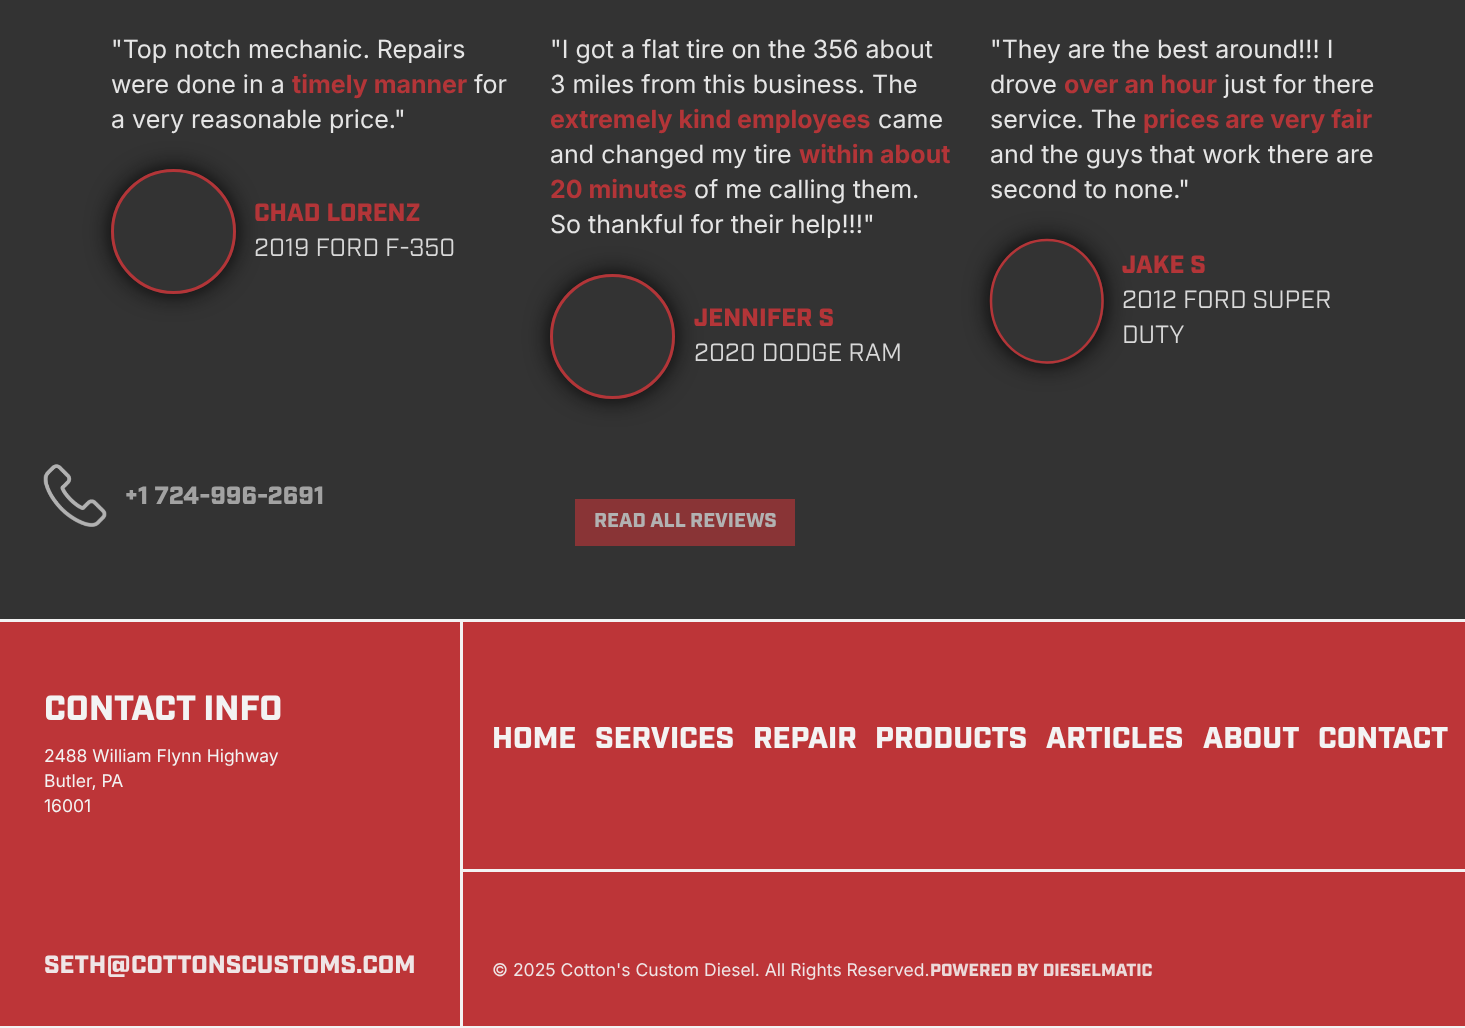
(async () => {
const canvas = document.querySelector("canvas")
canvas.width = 1465
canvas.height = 1028
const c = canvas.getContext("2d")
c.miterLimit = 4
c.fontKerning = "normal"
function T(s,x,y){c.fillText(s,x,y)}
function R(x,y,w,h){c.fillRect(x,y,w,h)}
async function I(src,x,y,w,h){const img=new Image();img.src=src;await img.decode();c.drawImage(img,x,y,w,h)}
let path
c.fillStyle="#333"
R(0,0,1465,1028)
c.font="25px Inter"
c.fillStyle="#e5e5e5"
T("\"Top notch mechanic. Repairs",111,58)
T("were done in a",111,93)
c.font="bold 25px Inter"
c.fillStyle="#b33538"
T("timely manner",292,93)
c.font="25px Inter"
c.fillStyle="#e5e5e5"
T("for",474,93)
T("a very reasonable price.\"",111,128)
c.save()
path = new Path2D("M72 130h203v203h-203zm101.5 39c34.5 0 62.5 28 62.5 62.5c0 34.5-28 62.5-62.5 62.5c-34.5 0-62.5-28-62.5-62.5c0-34.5 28-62.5 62.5-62.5z")
c.clip(path,"evenodd")
c.fillStyle="#040404"
c.filter="blur(12.5px)"
c.beginPath()
c.roundRect(111,169,125,125,62.5)
c.fill()
c.filter="none"
c.restore()
c.beginPath()
c.arc(173.5,231.5,61,0,7)
c.strokeStyle="#b33538"
c.lineWidth=3
c.stroke()
c.font="900 25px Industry"
c.fillStyle="#b33538"
T("CHAD LORENZ",254,221)
c.font="25px Industry"
c.fillStyle="#d9d9d9"
T("2019 FORD F-350",254,256)
c.font="25px Inter"
c.fillStyle="#e5e5e5"
T("\"I got a flat tire on the 356 about",550,58)
T("3 miles from this business. The",550,93)
c.font="bold 25px Inter"
c.fillStyle="#b33538"
T("extremely kind employees",550,128)
c.font="25px Inter"
c.fillStyle="#e5e5e5"
T("came",878,128)
T("and changed my tire",550,163)
c.font="bold 25px Inter"
c.fillStyle="#b33538"
T("within about",799,163)
T("20 minutes",550,198)
c.font="25px Inter"
c.fillStyle="#e5e5e5"
T("of me calling them.",694,198)
T("So thankful for their help!!!\"",550,233)
c.save()
path = new Path2D("M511 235h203v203h-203zm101.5 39c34.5 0 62.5 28 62.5 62.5c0 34.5-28 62.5-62.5 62.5c-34.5 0-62.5-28-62.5-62.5c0-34.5 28-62.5 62.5-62.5z")
c.clip(path,"evenodd")
c.fillStyle="#040404"
c.filter="blur(12.5px)"
c.beginPath()
c.roundRect(550,274,125,125,62.5)
c.fill()
c.filter="none"
c.restore()
c.beginPath()
c.arc(612.5,336.5,61,0,7)
c.stroke()
c.font="900 25px Industry"
c.fillStyle="#b33538"
T("JENNIFER S",694,326)
c.font="25px Industry"
c.fillStyle="#d9d9d9"
T("2020 DODGE RAM",694,361)
c.font="25px Inter"
c.fillStyle="#e5e5e5"
T("\"They are the best around!!! I",990,58)
T("drove",990,93)
c.font="bold 25px Inter"
c.fillStyle="#b33538"
T("over an hour",1064,93)
c.font="25px Inter"
c.fillStyle="#e5e5e5"
T("just for there",1224,93)
T("service. The",990,128)
c.font="bold 25px Inter"
c.fillStyle="#b33538"
T("prices are very fair",1143,128)
c.font="25px Inter"
c.fillStyle="#e5e5e5"
T("and the guys that work there are",990,163)
T("second to none.\"",990,198)
c.save()
path = new Path2D("M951 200h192v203h-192zm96 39c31.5 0 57 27.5 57 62c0 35-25.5 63-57 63c-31.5 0-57-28-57-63c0-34.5 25.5-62 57-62z")
c.clip(path,"evenodd")
c.fillStyle="#040404"
c.filter="blur(12.5px)"
c.beginPath()
c.roundRect(990,239,114,125,57)
c.fill()
c.filter="none"
c.restore()
path = new Path2D("M1047 240c30.5 0 55.5 27.5 55.5 61c0 34-25 61.5-55.5 61.5c-31 0-56-27.5-56-61.5c0-33.5 25-61 56-61z")
c.lineWidth=2.5
c.stroke(path)
c.font="900 25px Industry"
c.fillStyle="#b33538"
T("JAKE S",1122,273)
c.font="25px Industry"
c.fillStyle="#d9d9d9"
T("2012 FORD SUPER",1122,308)
T("DUTY",1122,343)
c.fillStyle="#893436"
R(575,499,220,47)
c.font="900 20px Industry"
c.fillStyle="#b2b2b2"
T("READ ALL REVIEWS",594,527)
c.fillStyle="#bd3538"
R(0,622,1465,404)
c.fillStyle="#f3f3f3"
R(0,619,1465,3)
R(0,1026,1465,2)
R(460,621,3,405)
await I("1.png",43,464,64,63)
c.font="900 25px Industry"
c.fillStyle="#a2a2a2"
T("+1 724-996-2691",125,504)
c.font="900 35px Industry"
c.fillStyle="#f3f3f3"
T("CONTACT INFO",44,720)
c.font="17.5px Inter"
T("2488 William Flynn Highway",44,762)
T("Butler, PA",44,787)
T("16001",44,812)
c.font="900 25px Industry"
c.fillStyle="#efe5e6"
T("SETH@COTTONSCUSTOMS.COM",44,973)
c.fillStyle="#f3f3f3"
R(463,869,1002,3)
c.font="900 30px Industry"
T("HOME",492,748)
T("SERVICES",595,748)
T("REPAIR",753,748)
T("PRODUCTS",875,748)
T("ARTICLES",1046,748)
T("ABOUT",1203,748)
T("CONTACT",1318,748)
c.font="17.5px Inter"
c.fillStyle="#efe5e6"
T("© 2025 Cotton's Custom Diesel. All Rights Reserved.",492,976)
c.font="900 17.5px Industry"
c.fillStyle="#ecd9d9"
T("POWERED BY DIESELMATIC",930,976)
})()
